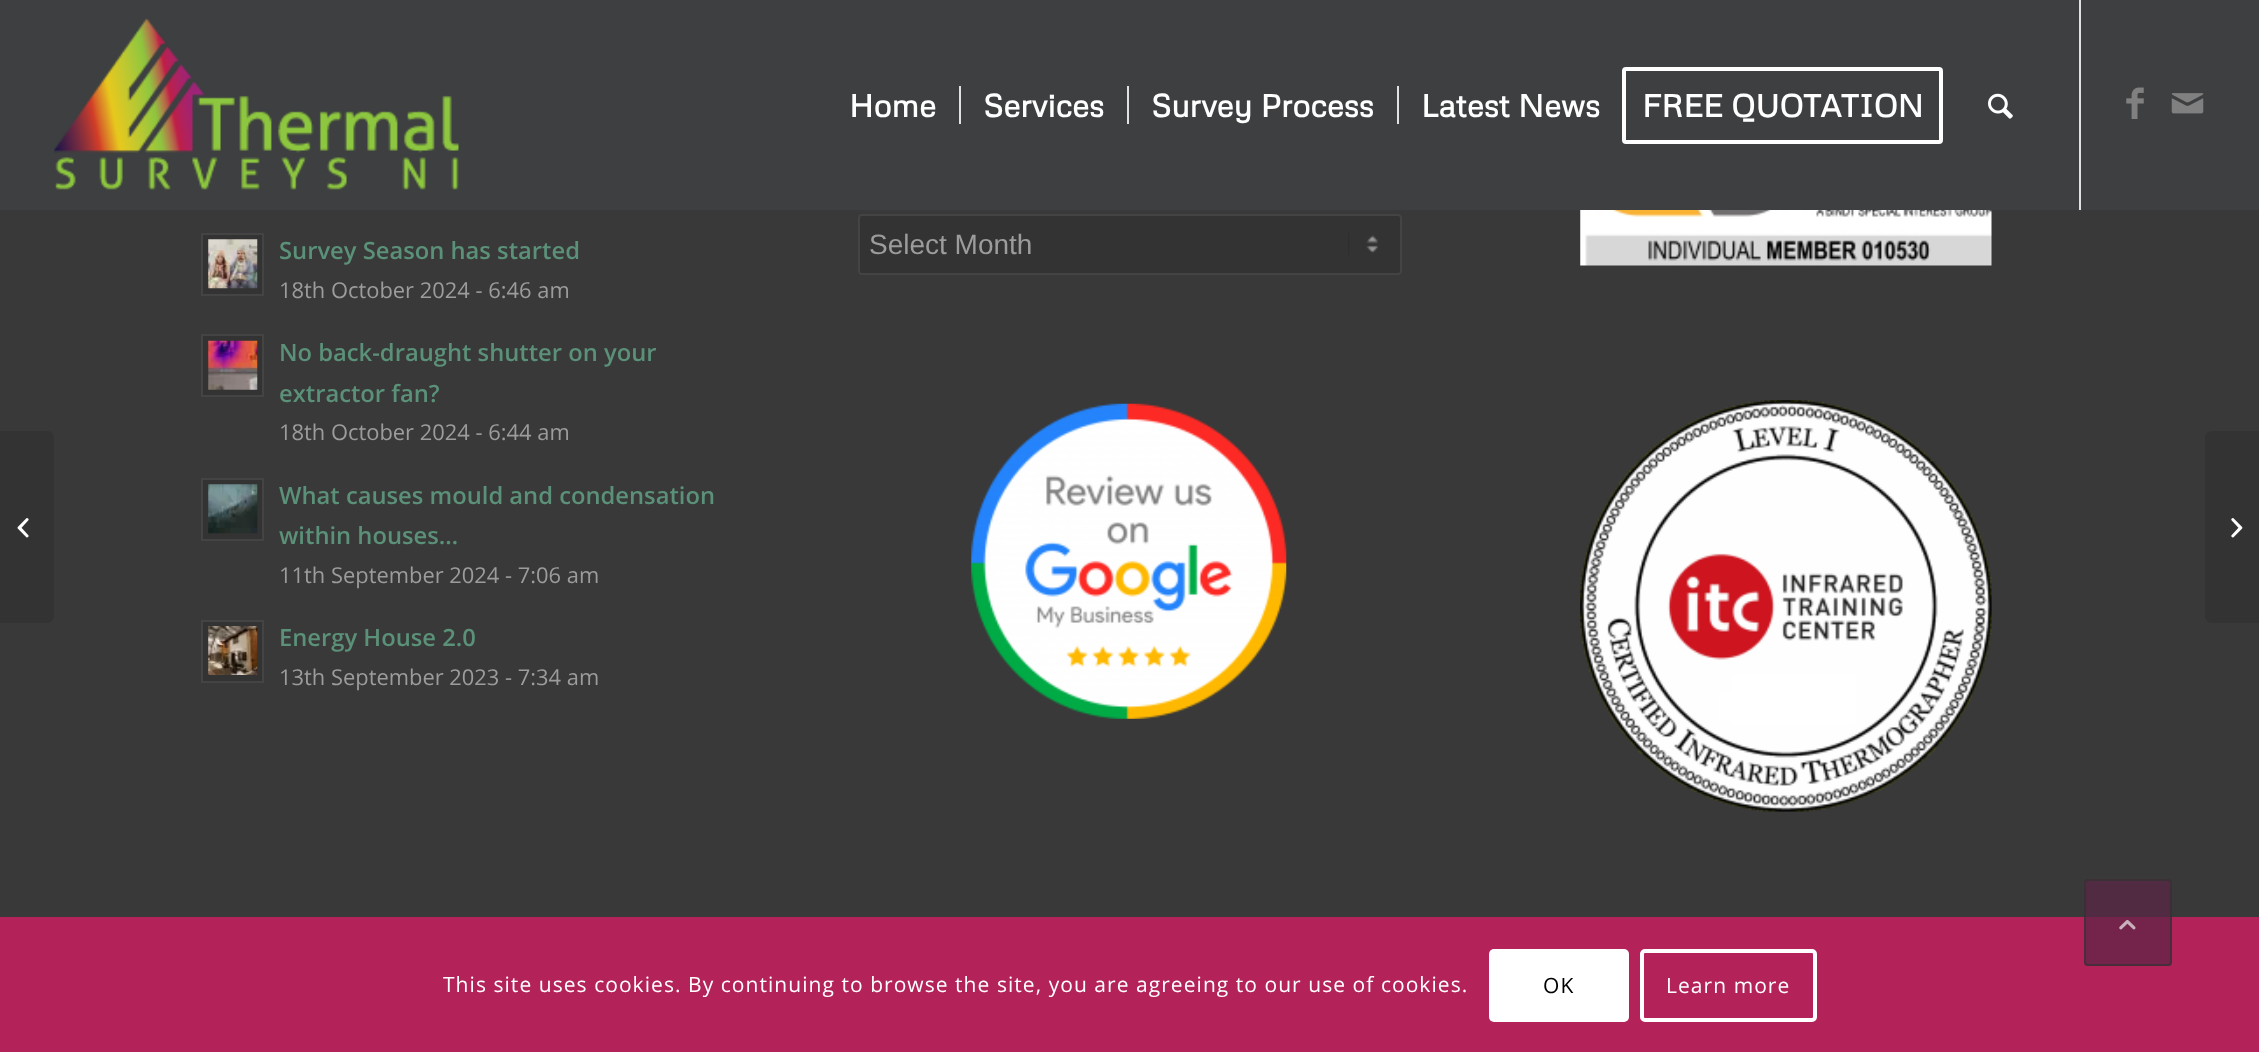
(async () => {
const canvas = document.querySelector("canvas")
canvas.width = 2259
canvas.height = 1052
const c = canvas.getContext("2d")
c.miterLimit = 4
c.fontKerning = "normal"
function T(s,x,y){c.fillText(s,x,y)}
function R(x,y,w,h){c.fillRect(x,y,w,h)}
function Q(x,y,w,h,r){c.beginPath();c.roundRect(x,y,w,h,r);c.fill()}
async function I(src,x,y,w,h){const img=new Image();img.src=src;await img.decode();c.drawImage(img,x,y,w,h)}
c.fillStyle="#393939"
R(0,0,2259,1052)
c.fillStyle="#3d3f40"
R(0,0,2259,210)
await I("1.png",54,18,405,172)
c.fillStyle="#e1e1e1"
R(2079,0,2,210)
c.font="bold 31.5px Metrophobic"
c.fillStyle="#fff"
T("Home",849,117)
T("Services",983,117)
c.fillStyle="#e1e1e1"
R(959,86,2,38)
c.fillStyle="#fff"
T("Survey Process",1151,117)
c.fillStyle="#e1e1e1"
R(1127,86,2,38)
c.fillStyle="#fff"
T("Latest News",1421,117)
c.fillStyle="#e1e1e1"
R(1397,86,2,38)
c.beginPath()
c.roundRect(1624,69,317,73,2)
c.strokeStyle="#fff"
c.lineWidth=4
c.stroke()
c.fillStyle="#fff"
T("FREE QUOTATION",1642,117)
await I("2.png",1988,93,25,26)
await I("3.png",2126,87,18,32)
await I("4.png",2171,93,33,21)
c.fillStyle="#333"
c.beginPath()
c.roundRect(0,431,54,192,[0,7,7,0])
c.fill()
await I("5.png",17,518,12,20)
c.beginPath()
c.rect(202,234,61,61)
c.fill()
c.strokeStyle="#444"
c.lineWidth=2
c.stroke()
await I("6.png",208,239,50,50)
c.font="600 23.75px Open Sans"
c.fillStyle="#5b9179"
T("Survey Season has started",279,259)
c.font="21.9px Open Sans"
c.fillStyle="#9c9c9c"
T("18th October 2024 - 6:46 am",279,298)
c.fillStyle="#333"
c.beginPath()
c.rect(202,335,61,61)
c.fill()
c.stroke()
await I("7.png",208,340,50,50)
c.font="600 23.75px Open Sans"
c.fillStyle="#5b9179"
T("No back-draught shutter on your",279,361)
T("extractor fan?",279,402)
c.font="21.9px Open Sans"
c.fillStyle="#9c9c9c"
T("18th October 2024 - 6:44 am",279,440)
c.fillStyle="#333"
c.beginPath()
c.rect(202,479,61,61)
c.fill()
c.stroke()
await I("8.png",208,484,50,50)
c.font="600 23.75px Open Sans"
c.fillStyle="#5b9179"
T("What causes mould and condensation",279,504)
T("within houses…",279,544)
c.font="21.9px Open Sans"
c.fillStyle="#9c9c9c"
T("11th September 2024 - 7:06 am",279,583)
c.fillStyle="#333"
c.beginPath()
c.rect(202,621,61,61)
c.fill()
c.stroke()
await I("9.png",208,626,50,49)
c.font="600 23.75px Open Sans"
c.fillStyle="#5b9179"
T("Energy House 2.0",279,646)
c.font="21.9px Open Sans"
c.fillStyle="#9c9c9c"
T("13th September 2023 - 7:34 am",279,685)
c.fillStyle="#333"
Q(858,214,544,61,4)
await I("10.png",1348,233,30,22)
c.beginPath()
c.roundRect(859,215,542,59,3)
c.stroke()
c.font="28px Liberation Sans"
c.fillStyle="#9c9c9c"
T("Select Month",869,254)
await I("11.png",971,403,316,316)
await I("12.png",1580,210,412,56)
await I("13.png",1580,400,412,412)
c.fillStyle="#333"
c.beginPath()
c.roundRect(2205,431,54,192,[7,0,0,7])
c.fill()
await I("14.png",2231,518,12,20)
c.fillStyle="#b32259"
R(0,917,2259,135)
c.fillStyle="#5a2545b3"
Q(2084,879,88,87,4)
c.beginPath()
c.roundRect(2085,880,86,85,3)
c.strokeStyle="#333333b3"
c.stroke()
await I("15.png",2119,920,17,10)
c.letterSpacing="1.05px"
c.font="21px Open Sans"
c.fillStyle="#fff"
T("This site uses cookies. By continuing to browse the site, you are agreeing to our use of cookies.",443,992)
Q(1489,949,140,73,5)
c.fillStyle="#000"
T("OK",1543,993)
c.beginPath()
c.roundRect(1642,951,173,69,3)
c.strokeStyle="#fff"
c.lineWidth=4
c.stroke()
c.fillStyle="#fff"
T("Learn more",1666,993)
})()
